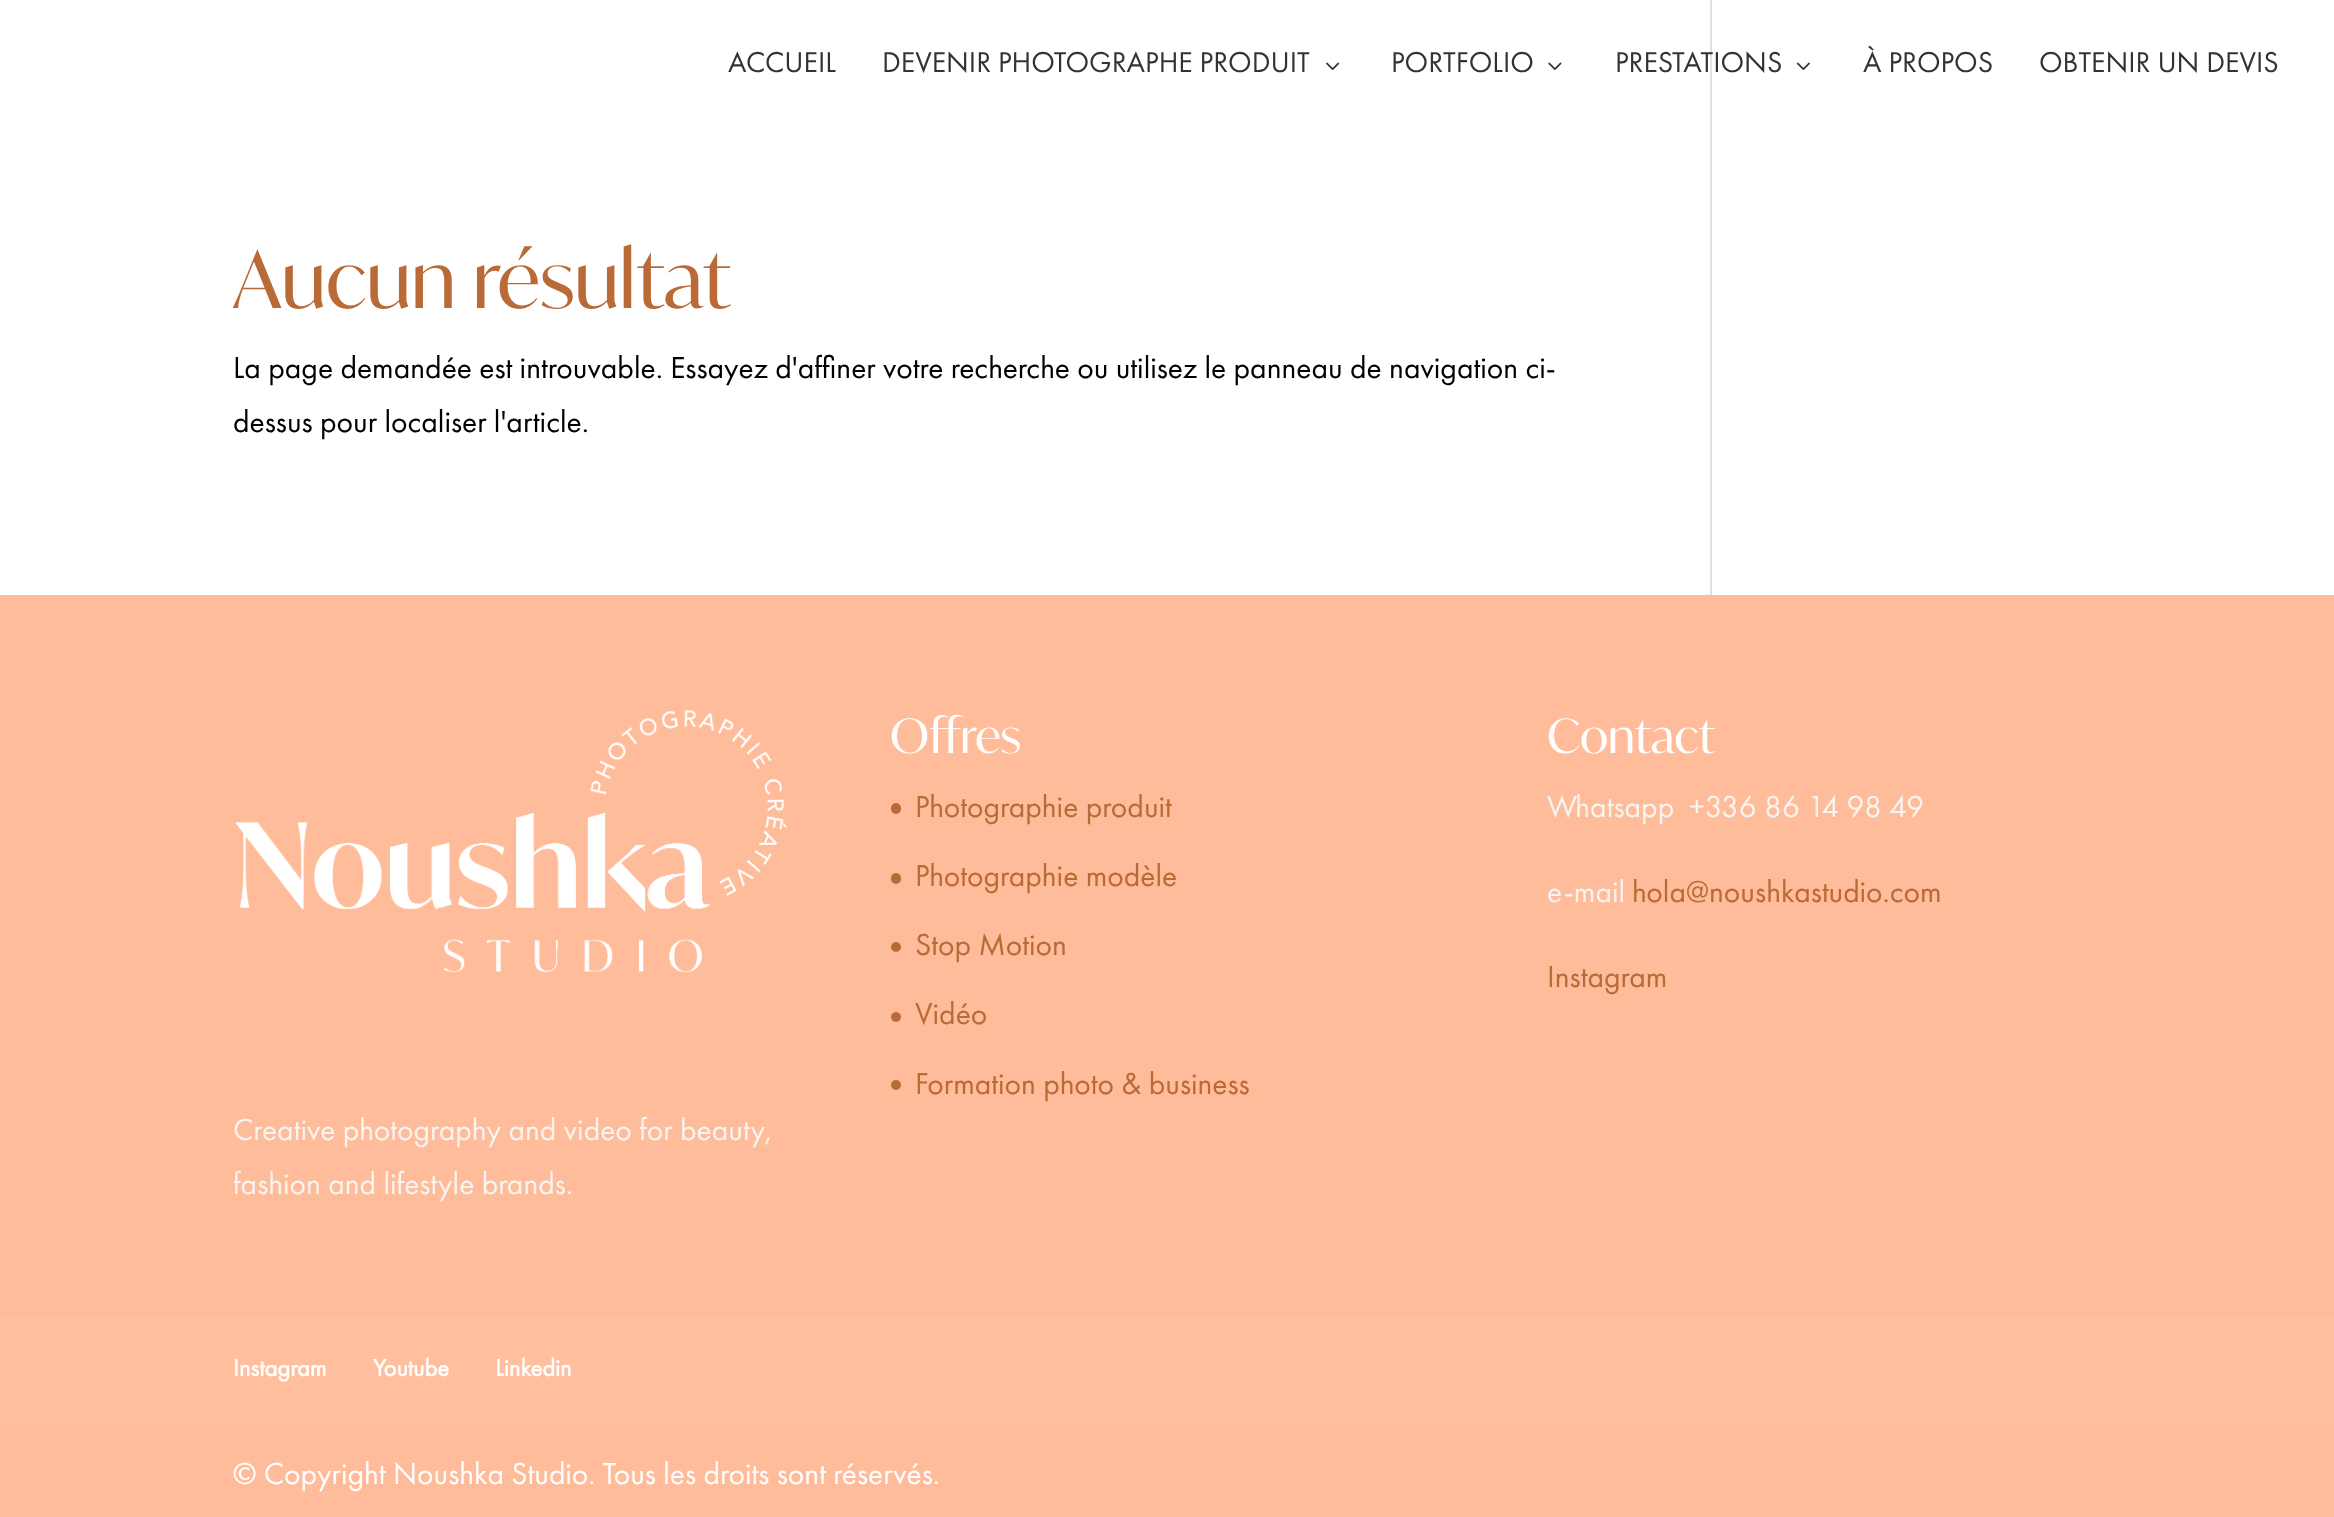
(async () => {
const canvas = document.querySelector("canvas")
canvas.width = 2334
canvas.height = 1517
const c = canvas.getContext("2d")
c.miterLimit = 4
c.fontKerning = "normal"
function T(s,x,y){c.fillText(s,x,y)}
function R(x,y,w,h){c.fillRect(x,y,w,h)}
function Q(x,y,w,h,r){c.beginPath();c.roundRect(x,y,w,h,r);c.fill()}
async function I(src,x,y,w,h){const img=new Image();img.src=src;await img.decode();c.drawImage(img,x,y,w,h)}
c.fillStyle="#fff"
R(0,0,2334,1517)
c.font="29.75px Futura PT"
c.fillStyle="#333"
T("ACCUEIL",728,72)
T("DEVENIR PHOTOGRAPHE PRODUIT",882,72)
await I("1.png",1326,62,14,8)
T("PORTFOLIO",1391,72)
await I("2.png",1548,62,14,8)
c.fillStyle="#e2e2e2"
R(1710,0,2,595)
c.fillStyle="#333"
T("PRESTATIONS",1615,72)
await I("3.png",1796,62,14,8)
T("À PROPOS",1863,72)
T("OBTENIR UN DEVIS",2039,72)
c.font="78.75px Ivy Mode"
c.fillStyle="#b96a36"
T("Aucun résultat",233,308)
c.font="31.5px Futura PT"
c.fillStyle="#000"
T("La page demandée est introuvable. Essayez d'affiner votre recherche ou utilisez le panneau de navigation ci-",233,378)
T("dessus pour localiser l'article.",233,432)
c.fillStyle="#ffbc9a"
R(0,595,2334,922)
c.font="47px Ivy Mode"
c.fillStyle="#fff"
T("Offres",890,753)
c.fillStyle="#b96a36"
Q(891,803,10,11,5)
c.font="31.5px Futura PT"
T("Photographie produit",915,817)
Q(891,873,10,11,5)
T("Photographie modèle",915,886)
c.beginPath()
c.arc(896,947,5,0,7)
c.fill()
T("Stop Motion",915,955)
c.beginPath()
c.arc(896,1017,5,0,7)
c.fill()
T("Vidéo",915,1024)
c.beginPath()
c.arc(896,1085,5,0,7)
c.fill()
T("Formation photo & business",915,1094)
c.font="47px Ivy Mode"
c.fillStyle="#fff"
T("Contact",1547,753)
c.font="31.5px Futura PT"
c.fillStyle="#f8f4f1"
T("Whatsapp  +336 86 14 98 49",1547,817)
T("e-mail",1547,902)
c.fillStyle="#b96a36"
T("hola@noushkastudio.com",1632,902)
T("Instagram",1547,987)
await I("4.png",235,710,552,263)
c.fillStyle="#f8f4f1"
T("Creative photography and video for beauty,",233,1140)
T("fashion and lifestyle brands.",233,1194)
c.fillStyle="#ffbf9f"
R(0,1316,2334,107)
c.font="bold 24.5px Futura PT"
c.fillStyle="#fff"
T("Instagram",233,1376)
T("Youtube",373,1376)
T("Linkedin",495,1376)
c.font="31.5px Futura PT"
T("© Copyright Noushka Studio. Tous les droits sont réservés.",233,1484)
})()
